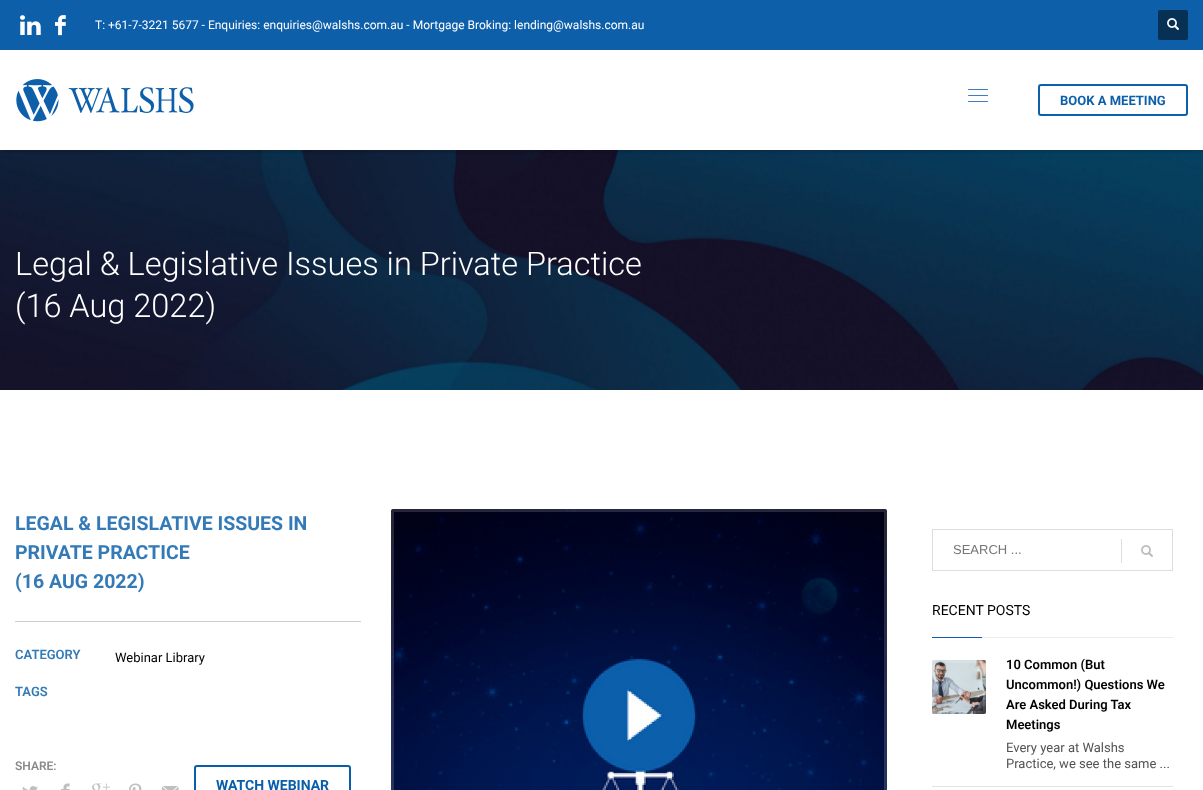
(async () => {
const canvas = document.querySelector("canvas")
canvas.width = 1203
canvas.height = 790
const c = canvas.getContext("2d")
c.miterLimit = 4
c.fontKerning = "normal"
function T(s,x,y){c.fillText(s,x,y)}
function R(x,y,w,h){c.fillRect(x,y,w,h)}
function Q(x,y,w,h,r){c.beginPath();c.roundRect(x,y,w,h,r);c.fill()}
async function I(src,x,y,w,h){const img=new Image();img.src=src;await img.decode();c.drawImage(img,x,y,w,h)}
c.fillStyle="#fff"
R(0,0,1203,790)
await I("5.png",0,150,1203,240)
c.save()
c.beginPath()
c.rect(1,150,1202,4)
c.clip()
c.fillStyle="#00000026"
c.filter="blur(1.5px)"
c.beginPath()
c.rect(2,2,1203,150)
c.fill()
c.filter="none"
c.restore()
c.fillStyle="#0e5faa"
R(0,0,1203,50)
await I("1.png",20,15,21,20)
await I("2.png",55,15,11,21)
c.font="12px Roboto"
c.fillStyle="#fff"
T("T: +61-7-3221 5677 - Enquiries: enquiries@walshs.com.au - Mortgage Broking: lending@walshs.com.au",95,29)
c.fillStyle="#073055"
Q(1158,10,30,30,2)
await I("3.png",1167,18,12,12)
await I("4.png",16,79,178,43)
c.fillStyle="#3e7fbb"
Q(968,89,20,1,.5)
Q(968,95,20,1,.5)
Q(968,101,20,1,.5)
c.beginPath()
c.roundRect(1039,85,148,30,2)
c.strokeStyle="#0e5faa"
c.lineWidth=2
c.stroke()
c.font="bold 13px Roboto"
c.fillStyle="#0e5faa"
T("BOOK A MEETING",1060,105)
c.font="300 32.5px Roboto"
c.fillStyle="#fff"
T("Legal & Legislative Issues in Private Practice",15,275)
T("(16 Aug 2022)",15,317)
c.fillStyle="#cbcbcb"
R(15,621,346,1)
c.font="bold 19.5px Roboto"
c.fillStyle="#337ab7"
T("LEGAL & LEGISLATIVE ISSUES IN",15,530)
T("PRIVATE PRACTICE",15,559)
T("(16 AUG 2022)",15,588)
c.font="600 13px Roboto"
T("CATEGORY",15,659)
c.font="13px Roboto"
c.fillStyle="#000"
T("Webinar Library",115,662)
c.font="600 13px Roboto"
c.fillStyle="#337ab7"
T("TAGS",15,696)
c.font="600 12px Roboto"
c.fillStyle="#8a8a8a"
T("SHARE:",15,770)
await I("6.png",22,786,16,4)
await I("7.png",61,783,9,7)
await I("8.png",92,783,18,7)
await I("9.png",129,783,13,7)
await I("10.png",162,786,17,4)
c.beginPath()
c.roundRect(195,766,155,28,2)
c.strokeStyle="#085eab"
c.stroke()
c.font="bold 14px Roboto"
c.fillStyle="#085eab"
T("WATCH WEBINAR",216,790)
await I("11.png",391,509,496,281)
c.beginPath()
c.roundRect(392.5,510.5,493,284,1.5)
c.strokeStyle="#ffffff26"
c.lineWidth=3
c.stroke()
c.strokeStyle="#ddd"
c.lineWidth=1
c.strokeRect(932.5,529.5,240,41)
c.font="13px Liberation Sans"
c.fillStyle="#757575"
T("SEARCH ...",953,554)
c.fillStyle="#ddd"
R(1121,539,1,24)
await I("12.png",1141,545,12,12)
c.font="14px Roboto"
c.fillStyle="#000"
T("RECENT POSTS",932,615)
c.fillStyle="#0e5faa"
R(932,637,50,1)
c.fillStyle="#ececec"
R(982,637,191,1)
c.fillStyle="#e3e3e3"
R(932,786,241,1)
await I("13.png",932,660,54,54)
c.beginPath()
c.roundRect(933.5,661.5,51,51,1.5)
c.strokeStyle="#ffffff26"
c.lineWidth=3
c.stroke()
c.font="600 13px Roboto"
c.fillStyle="#000"
T("10 Common (But",1006,669)
T("Uncommon!) Questions We",1006,689)
T("Are Asked During Tax",1006,709)
T("Meetings",1006,729)
c.font="13px Roboto"
c.fillStyle="#535353"
T("Every year at Walshs",1006,752)
T("Practice, we see the same ...",1006,768)
})()
